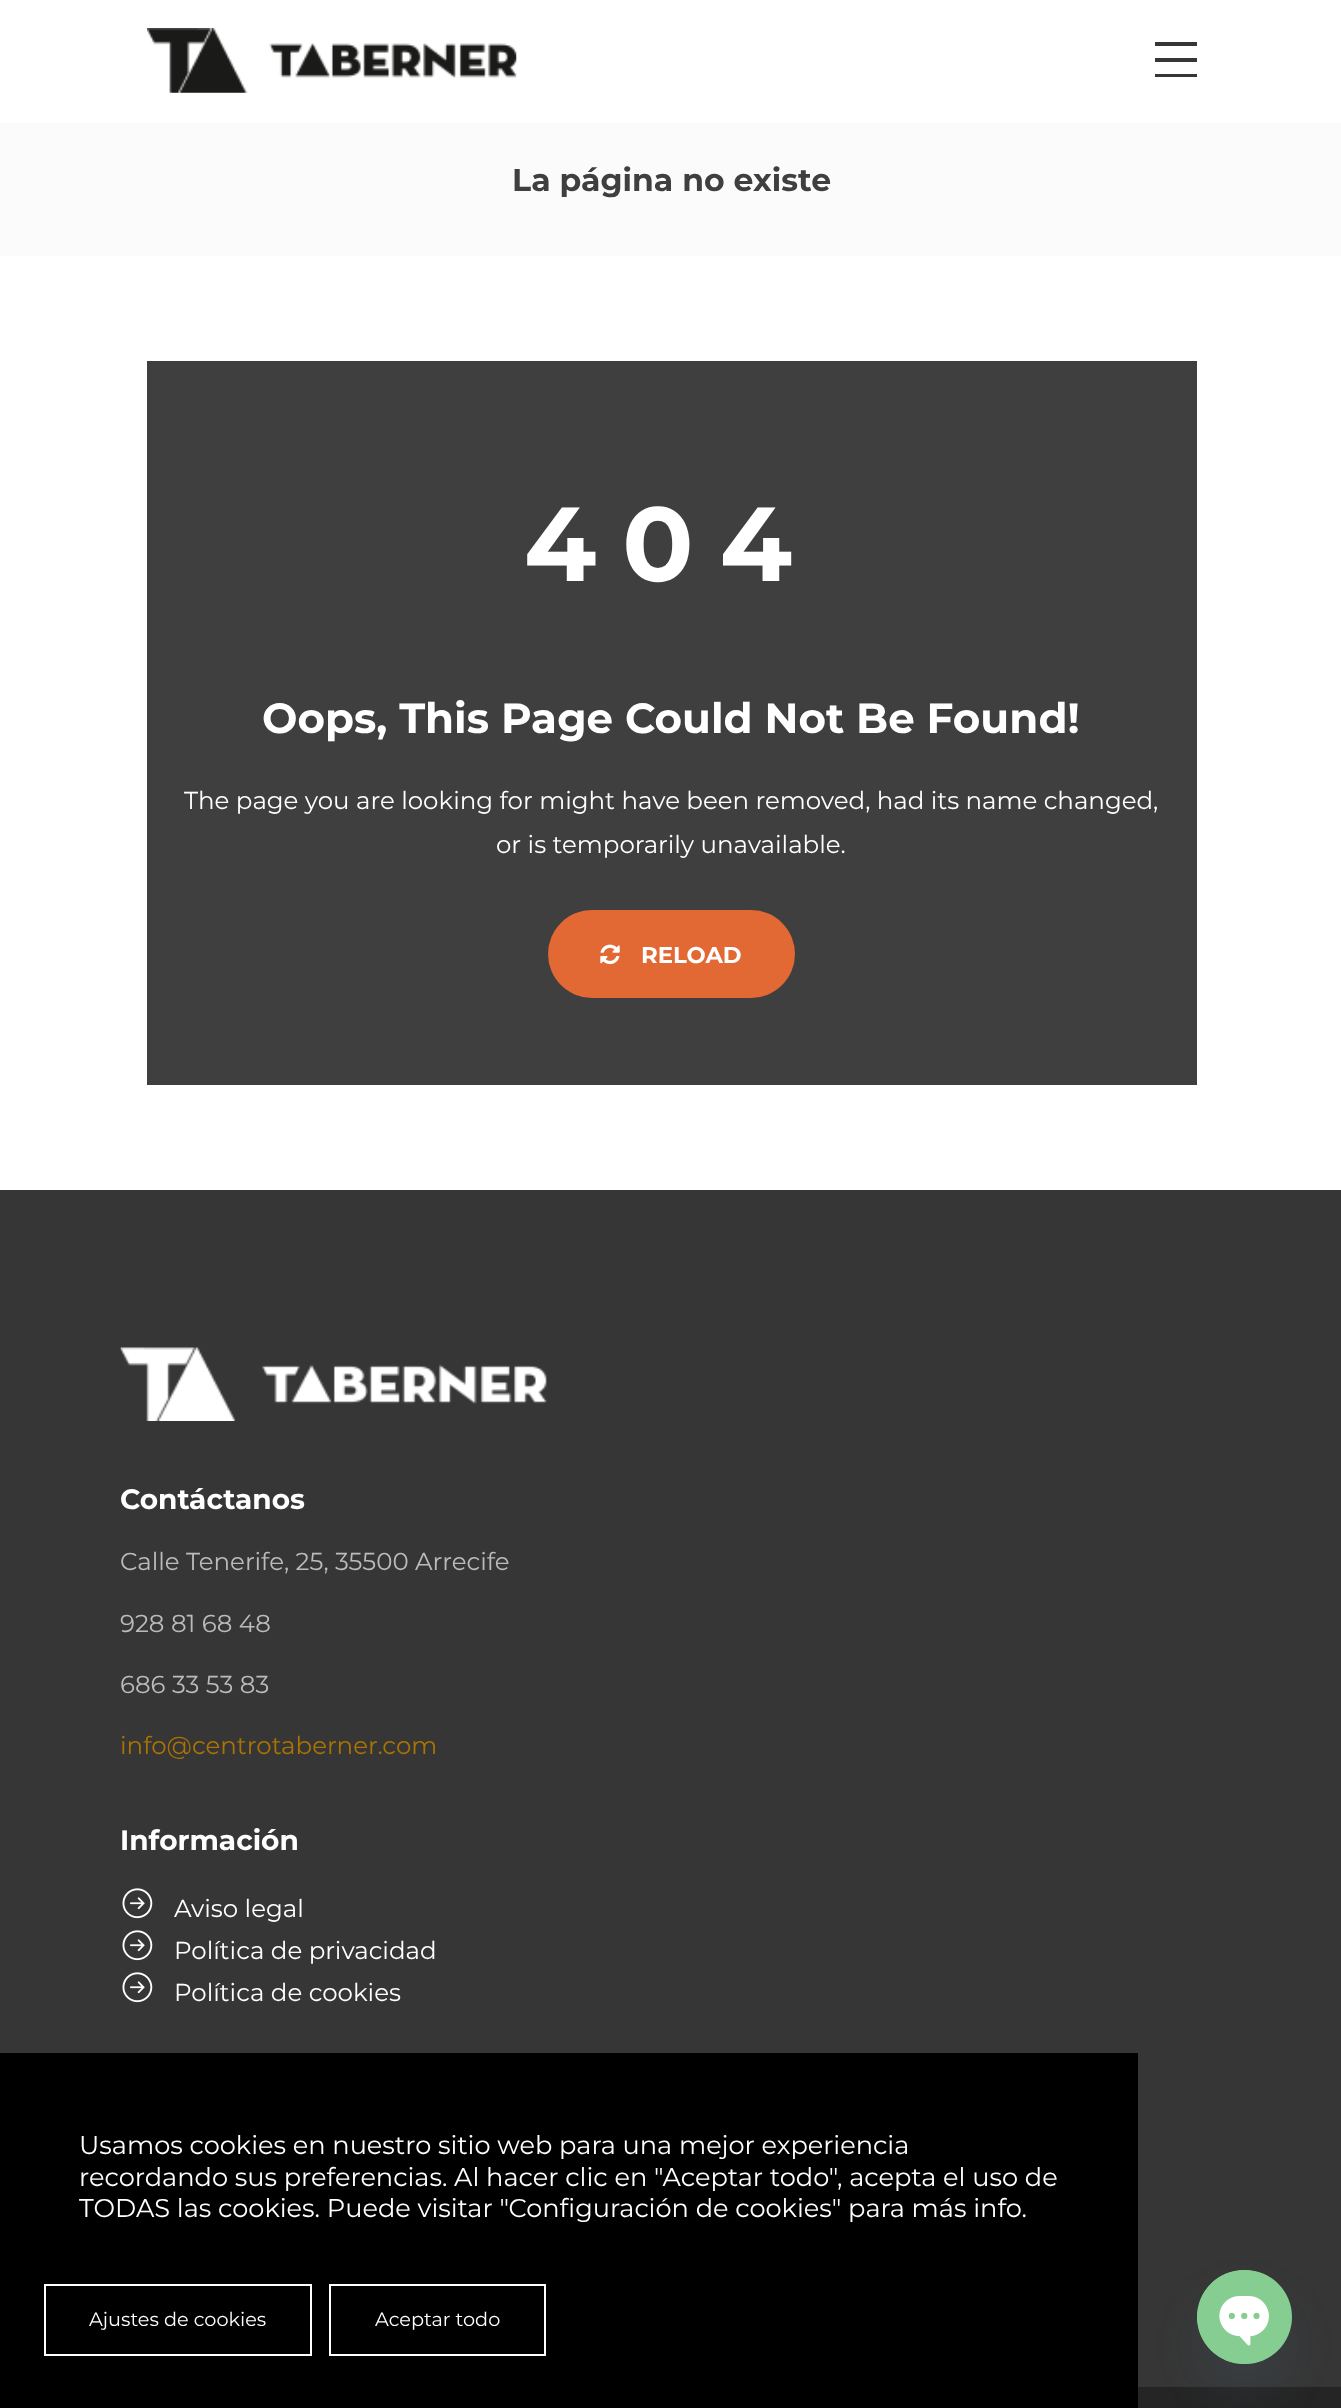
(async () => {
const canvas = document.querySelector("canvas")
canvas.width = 1341
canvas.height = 2408
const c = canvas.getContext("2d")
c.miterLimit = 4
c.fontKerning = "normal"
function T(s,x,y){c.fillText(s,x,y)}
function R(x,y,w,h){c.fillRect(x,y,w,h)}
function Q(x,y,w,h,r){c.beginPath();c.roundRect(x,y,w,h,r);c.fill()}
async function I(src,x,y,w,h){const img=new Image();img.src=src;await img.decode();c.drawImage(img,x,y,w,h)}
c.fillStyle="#fff"
R(0,0,1341,2408)
await I("1.png",147,28,370,65)
c.fillStyle="#363636"
R(1155,58,42,4)
R(1155,42,42,4)
R(1155,74,42,3)
c.fillStyle="#fbfbfb"
R(0,123,1341,133)
c.font="bold 31.5px Montserrat"
c.fillStyle="#3f3f3f"
T("La página no existe",512,191)
R(147,361,1050,724)
c.letterSpacing="26px"
c.font="bold 105px Montserrat"
c.fillStyle="#fff"
T("404",524,581)
c.letterSpacing="0px"
c.font="bold 42px Montserrat"
T("Oops, This Page Could Not Be Found!",262,733)
c.font="24.5px Montserrat"
T("The page you are looking for might have been removed, had its name changed,",184,809)
T("or is temporarily unavailable.",496,853)
c.fillStyle="#e26834"
Q(548,910,247,88,44)
await I("2.png",600,944,20,21)
c.font="bold 22.75px Montserrat"
c.fillStyle="#fff"
T("RELOAD",641,963)
c.fillStyle="#363636"
R(0,1190,1341,1197)
await I("3.png",120,1347,427,74)
c.font="bold 28px Montserrat"
c.fillStyle="#fff"
T("Contáctanos",120,1509)
c.font="24.5px Montserrat"
c.fillStyle="#bbb"
T("Calle Tenerife, 25, 35500 Arrecife",120,1570)
T("928 81 68 48",120,1632)
T("686 33 53 83",120,1693)
c.fillStyle="#aa7303"
T("info@centrotaberner.com",120,1754)
c.font="bold 28px Montserrat"
c.fillStyle="#fff"
T("Información",120,1850)
await I("4.png",122,1888,31,31)
c.font="24.5px Montserrat"
T("Aviso legal",174,1917)
await I("4.png",122,1930,31,31)
T("Política de privacidad",174,1959)
await I("4.png",122,1972,31,31)
T("Política de cookies",174,2001)
c.fillStyle="#252525"
R(1138,2387,203,21)
c.fillStyle="#000"
R(0,2053,1138,355)
c.font="25.65px Montserrat"
c.fillStyle="#fff"
T("Usamos cookies en nuestro sitio web para una mejor experiencia",79,2154)
T("recordando sus preferencias. Al hacer clic en \"Aceptar todo\", acepta el uso de",79,2186)
T("TODAS las cookies. Puede visitar \"Configuración de cookies\" para más info.",79,2217)
c.strokeStyle="#fff"
c.lineWidth=2
c.strokeRect(45,2285,266,70)
c.font="19.25px Montserrat"
T("Ajustes de cookies",89,2326)
c.strokeRect(330,2285,215,70)
T("Aceptar todo",375,2326)
c.fillStyle="#49687e29"
c.filter="blur(21px)"
c.beginPath()
c.roundRect(1197,2298,95,94,47)
c.fill()
c.filter="none"
c.fillStyle="#86cd91"
Q(1197,2270,95,94,47)
await I("5.png",1197,2270,72,94)
})()
